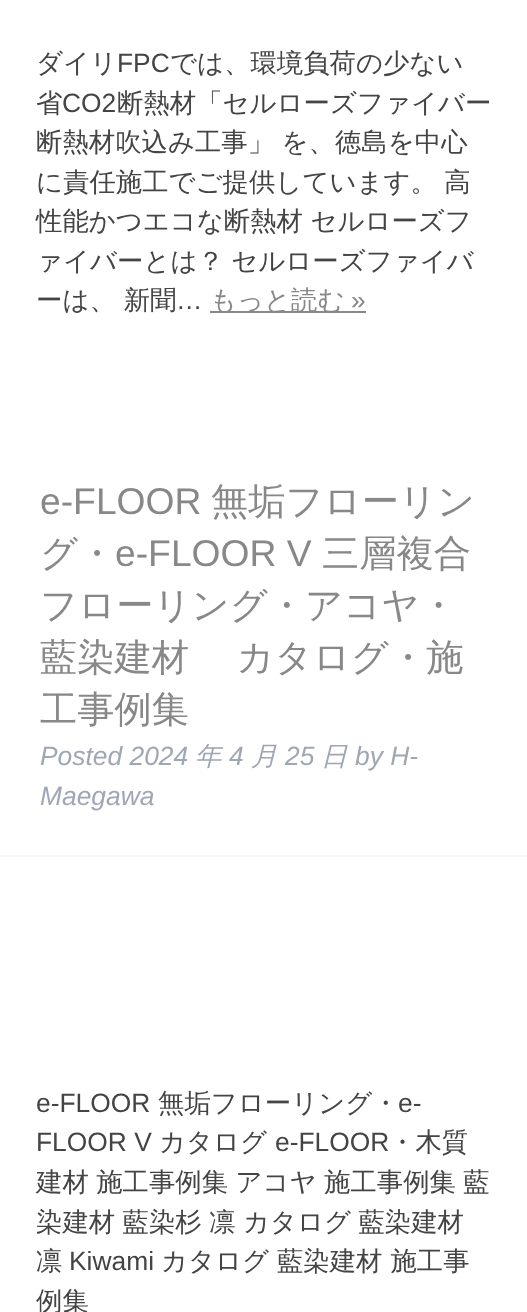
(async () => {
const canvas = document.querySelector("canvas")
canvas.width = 527
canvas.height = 1312
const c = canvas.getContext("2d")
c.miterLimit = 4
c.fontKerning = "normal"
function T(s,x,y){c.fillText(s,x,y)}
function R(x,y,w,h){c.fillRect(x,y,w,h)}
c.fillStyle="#fff"
R(0,0,527,1312)
c.font="500 26.4px WenQuanYi Zen Hei"
c.fillStyle="#444"
T("ダイリ",36,72)
c.font="26.4px Liberation Sans"
T("FPC",117,72)
c.font="500 26.4px WenQuanYi Zen Hei"
T("では、環境負荷の少ない",170,72)
T("省",36,112)
c.font="26.4px Liberation Sans"
T("CO2",62,112)
c.font="500 26.4px WenQuanYi Zen Hei"
T("断熱材「セルローズファイバー",117,112)
c.wordSpacing="-0.5px"
T("断熱材吹込み工事」 を、徳島を中心",36,151)
T("に責任施工でご提供しています。 高",36,191)
T("性能かつエコな断熱材 セルローズフ",36,230)
T("ァイバーとは？ セルローズファイバ",36,270)
c.wordSpacing="0px"
T("ーは、 新聞",36,309)
c.font="26.4px Liberation Sans"
T("…",176,309)
c.fillStyle="#888"
R(210,311,156,2)
c.font="500 26.4px WenQuanYi Zen Hei"
T("もっと読む",210,309)
c.font="26.4px Liberation Sans"
T("»",351,309)
c.fillStyle="#f8f9fa"
R(0,855,527,2)
c.font="37.25px Liberation Sans"
c.fillStyle="#888"
T("e-FLOOR",40,514)
c.font="500 37.25px WenQuanYi Zen Hei"
T("無垢フローリン",211,514)
T("グ・",40,566)
c.font="37.25px Liberation Sans"
T("e-FLOOR V",115,566)
c.font="500 37.25px WenQuanYi Zen Hei"
T("三層複合",322,566)
T("フローリング・アコヤ・",40,618)
c.wordSpacing="-1px"
T("藍染建材 　カタログ・施",40,670)
c.wordSpacing="0px"
T("工事例集",40,722)
c.font="italic 26.4px Liberation Sans"
c.fillStyle="#9fa6b4"
T("Posted 2024",40,765)
c.font="italic 500 26.4px WenQuanYi Zen Hei"
T("年",195,765)
c.font="italic 26.4px Liberation Sans"
T("4",229,765)
c.font="italic 500 26.4px WenQuanYi Zen Hei"
T("月",251,765)
c.font="italic 26.4px Liberation Sans"
T("25",285,765)
c.font="italic 500 26.4px WenQuanYi Zen Hei"
T("日",321,765)
c.font="italic 26.4px Liberation Sans"
T("by H-",355,765)
T("Maegawa",40,805)
c.font="26.4px Liberation Sans"
c.fillStyle="#444"
T("e-FLOOR",36,1112)
c.font="500 26.4px WenQuanYi Zen Hei"
T("無垢フローリング・",158,1112)
c.font="26.4px Liberation Sans"
T("e-",398,1112)
T("FLOOR V",36,1151)
c.font="500 26.4px WenQuanYi Zen Hei"
T("カタログ",159,1151)
c.font="26.4px Liberation Sans"
T("e-FLOOR",275,1151)
c.font="500 26.4px WenQuanYi Zen Hei"
T("・木質",389,1151)
c.wordSpacing="-0.5px"
T("建材 施工事例集 アコヤ 施工事例集 藍",36,1191)
T("染建材 藍染杉 凛 カタログ 藍染建材",36,1231)
c.wordSpacing="0px"
T("凛",36,1270)
c.font="26.4px Liberation Sans"
T("Kiwami",69,1270)
c.font="500 26.4px WenQuanYi Zen Hei"
T("カタログ 藍染建材 施工事",161,1270)
T("例集",36,1310)
})()
